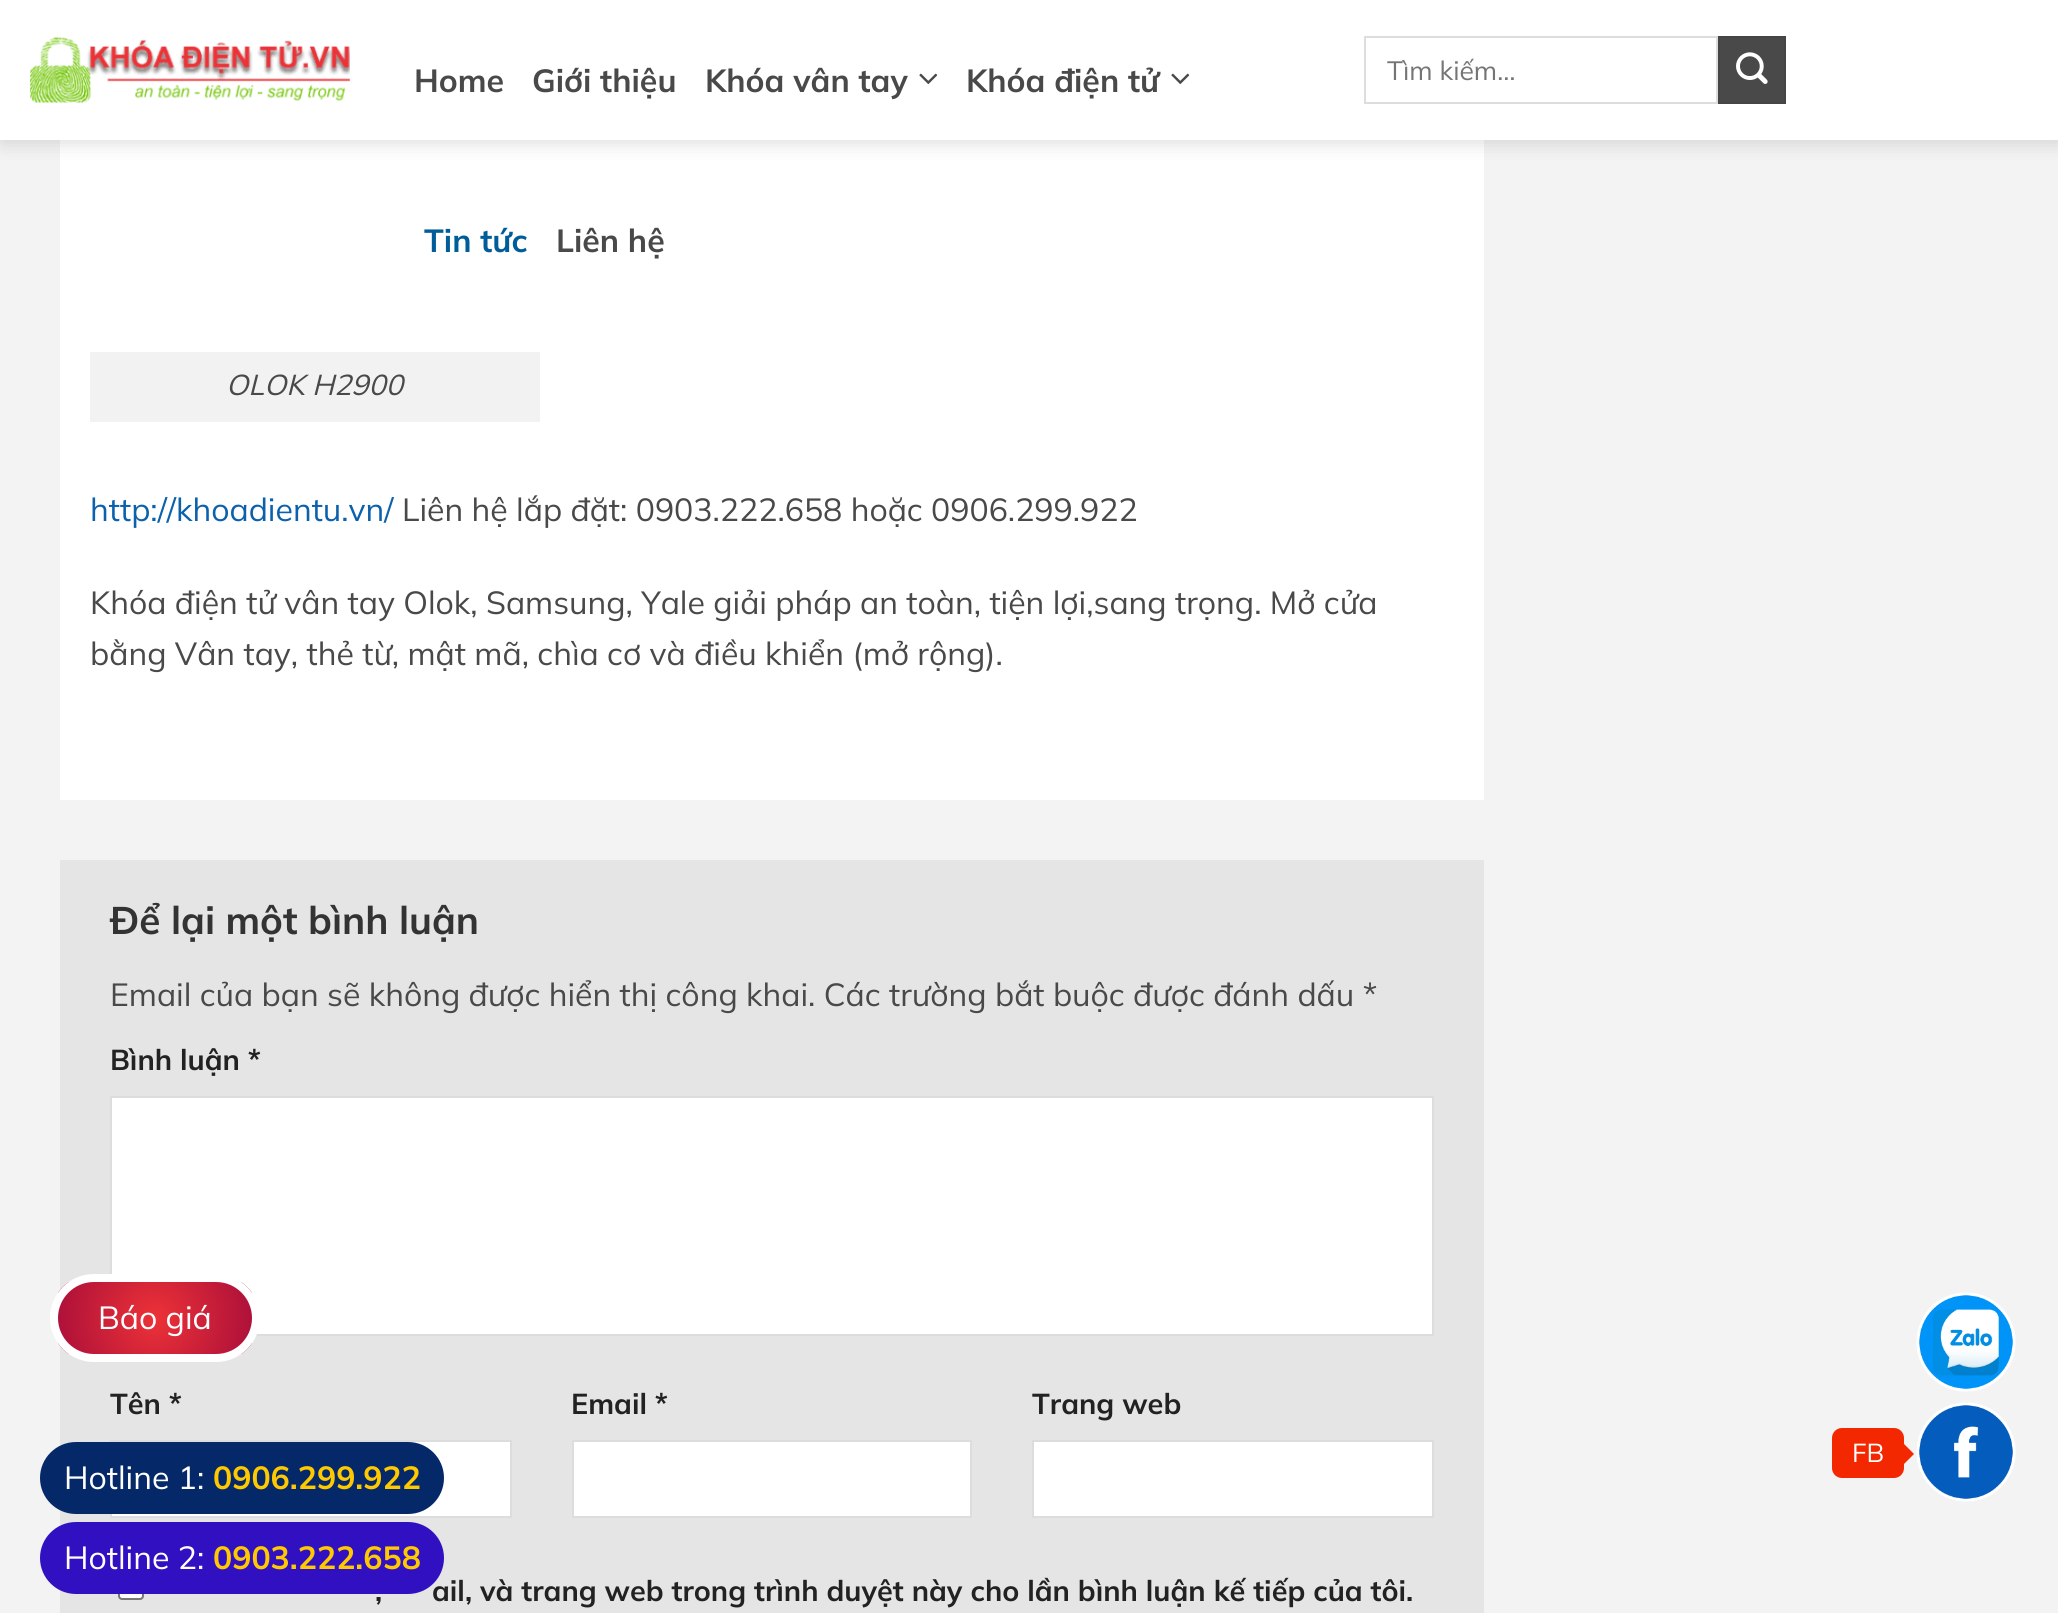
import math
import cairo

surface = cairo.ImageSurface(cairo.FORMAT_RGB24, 2058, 1613)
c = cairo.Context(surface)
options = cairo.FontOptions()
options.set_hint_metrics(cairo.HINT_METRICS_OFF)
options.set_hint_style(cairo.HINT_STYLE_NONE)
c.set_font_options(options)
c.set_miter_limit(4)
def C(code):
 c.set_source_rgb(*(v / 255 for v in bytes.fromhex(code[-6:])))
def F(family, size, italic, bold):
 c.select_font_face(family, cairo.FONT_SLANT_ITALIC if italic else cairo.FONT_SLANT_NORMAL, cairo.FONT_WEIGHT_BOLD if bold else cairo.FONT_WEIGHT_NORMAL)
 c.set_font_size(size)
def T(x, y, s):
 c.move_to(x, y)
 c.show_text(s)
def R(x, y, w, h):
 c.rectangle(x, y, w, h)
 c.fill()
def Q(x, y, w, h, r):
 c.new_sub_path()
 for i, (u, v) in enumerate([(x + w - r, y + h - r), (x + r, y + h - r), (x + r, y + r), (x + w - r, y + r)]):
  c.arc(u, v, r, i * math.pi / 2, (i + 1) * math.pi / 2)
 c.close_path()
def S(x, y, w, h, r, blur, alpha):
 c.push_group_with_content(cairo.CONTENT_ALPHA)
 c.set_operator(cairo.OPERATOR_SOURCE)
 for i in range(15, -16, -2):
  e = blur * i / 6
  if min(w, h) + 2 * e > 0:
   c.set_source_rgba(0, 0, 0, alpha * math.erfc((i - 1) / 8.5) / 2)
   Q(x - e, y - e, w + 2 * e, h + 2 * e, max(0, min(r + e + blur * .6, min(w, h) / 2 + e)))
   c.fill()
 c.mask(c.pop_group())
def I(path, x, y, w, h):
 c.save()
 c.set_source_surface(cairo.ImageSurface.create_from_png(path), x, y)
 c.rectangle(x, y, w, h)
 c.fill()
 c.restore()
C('f3f3f3')
c.paint()
C('ffffff')
R(60,140,1424,660)
C('000000')
S(2,2,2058,140,0,10,.15)
C('ffffff')
R(0,0,2058,140)
I('1.png',30,37,320,66)
F('Mulish',32,0,1)
C('4a494a')
T(414,92,'Home')
T(532,92,'Giới thiệu')
T(705,92,'Khóa vân tay')
I('2.png',919,73,19,11)
T(966,92,'Khóa điện tử')
I('2.png',1171,73,19,11)
C('005d99')
T(424,252,'Tin tức')
C('4a494a')
T(556,252,'Liên hệ')
c.rectangle(1365,37,352,66)
C('dddddd')
c.stroke()
F('Mulish',26.5,0,0)
C('757575')
T(1387,80,'Tìm kiếm…')
C('4a494a')
c.rectangle(1719,37,66,66)
c.fill_preserve()
C('464546')
c.stroke()
I('3.png',1736,52,32,32)
C('f2f2f2')
R(90,352,450,70)
F('Mulish',28.8,1,0)
C('4a494a')
T(226,395,'OLOK H2900')
F('Mulish',32,0,0)
C('0b61ab')
T(90,521,'http://khoadientu.vn/')
C('4a494a')
T(402,521,'Liên hệ lắp đặt: 0903.222.658 hoặc 0906.299.922')
T(90,614,'Khóa điện tử vân tay Olok, Samsung, Yale giải pháp an toàn, tiện lợi,sang trọng. Mở cửa')
T(90,665,'bằng Vân tay, thẻ từ, mật mã, chìa cơ và điều khiển (mở rộng).')
C('e5e5e5')
R(60,860,1424,753)
F('Mulish',38.5,0,1)
C('333333')
T(110,934,'Để lại một bình luận')
F('Mulish',32,0,0)
C('4a494a')
T(110,1006,'Email của bạn sẽ không được hiển thị công khai. Các trường bắt buộc được đánh dấu *')
F('Mulish',28.8,0,1)
C('222222')
T(110,1070,'Bình luận *')
C('ffffff')
c.rectangle(111,1097,1322,238)
c.fill_preserve()
C('dddddd')
c.stroke()
C('222222')
T(110,1414,'Tên *')
C('ffffff')
c.rectangle(111,1441,400,76)
c.fill_preserve()
C('dddddd')
c.stroke()
C('222222')
T(571,1414,'Email *')
C('ffffff')
c.rectangle(573,1441,398,76)
c.fill_preserve()
C('dddddd')
c.stroke()
C('222222')
T(1032,1414,'Trang web')
C('ffffff')
c.rectangle(1033,1441,400,76)
c.fill_preserve()
C('dddddd')
c.stroke()
C('ffffff')
Q(119,1575,24,24,3)
c.fill_preserve()
C('767676')
c.stroke()
C('222222')
T(375,1601,',')
T(432,1601,'ail, và trang web trong trình duyệt này cho lần bình luận kế tiếp của tôi.')
c.save()
Q(50,1274,210,88,44)
c.clip()
gradient = cairo.RadialGradient(155,1318,0,155,1318,103)
gradient.add_color_stop_rgba(0,0.929,0.196,0.216,1)
gradient.add_color_stop_rgba(1,0.671,0.059,0.227,1)
c.set_source(gradient)
R(58,1282,194,72)
c.restore()
Q(54,1278,202,80,40)
C('ffffff')
c.set_line_width(8)
c.stroke()
F('Mulish',32,0,0)
T(98,1329,'Báo giá')
I('4.png',1916,1292,100,100)
C('f32700')
Q(1832,1428,72,50,10)
c.fill()
F('Mulish',26,0,0)
C('ffffff')
T(1852,1462,'FB')
C('f32700')
c.new_path()
c.move_to(1904,1464)
c.line_to(1904,1444)
c.line_to(1914,1454)
c.close_path()
c.fill()
I('5.png',1916,1402,100,100)
C('052968')
Q(40,1442,404,72,36)
c.fill()
F('Mulish',32,0,0)
C('ffffff')
T(64,1489,'Hotline 1:')
F('Mulish',32,0,1)
C('fec901')
T(213,1489,'0906.299.922')
C('3110c2')
Q(40,1522,404,72,36)
c.fill()
F('Mulish',32,0,0)
C('ffffff')
T(64,1569,'Hotline 2:')
F('Mulish',32,0,1)
C('fec901')
T(213,1569,'0903.222.658')
surface.write_to_png('o.png')
